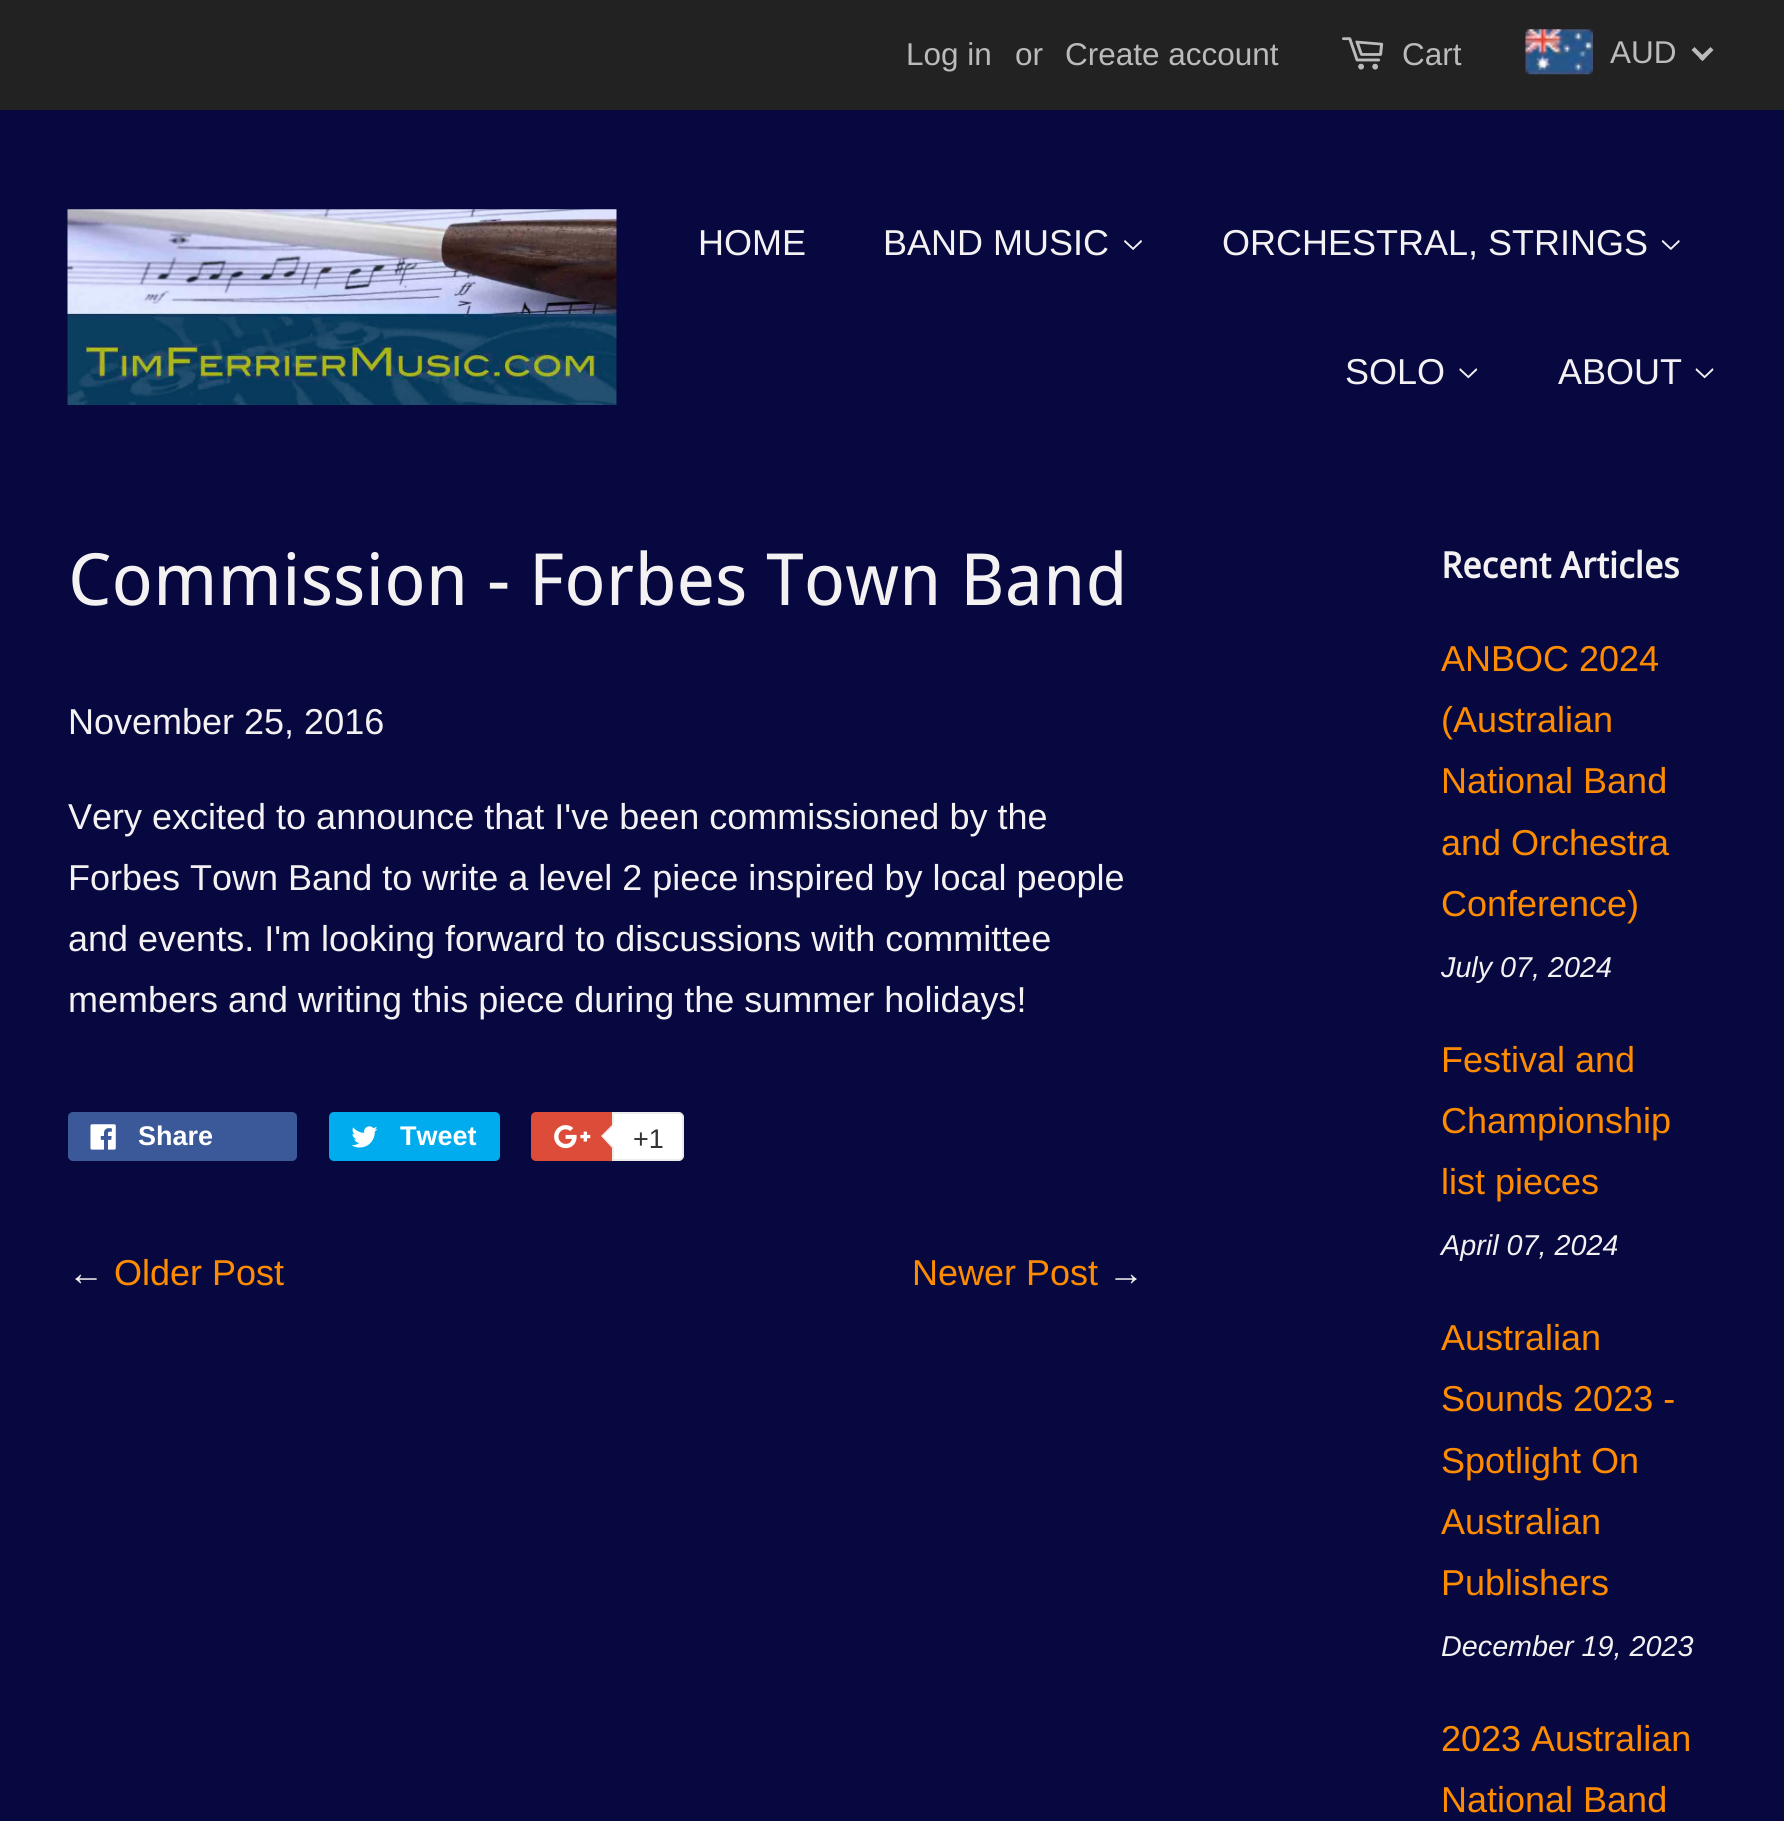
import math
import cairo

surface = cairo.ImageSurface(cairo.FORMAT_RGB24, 1784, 1821)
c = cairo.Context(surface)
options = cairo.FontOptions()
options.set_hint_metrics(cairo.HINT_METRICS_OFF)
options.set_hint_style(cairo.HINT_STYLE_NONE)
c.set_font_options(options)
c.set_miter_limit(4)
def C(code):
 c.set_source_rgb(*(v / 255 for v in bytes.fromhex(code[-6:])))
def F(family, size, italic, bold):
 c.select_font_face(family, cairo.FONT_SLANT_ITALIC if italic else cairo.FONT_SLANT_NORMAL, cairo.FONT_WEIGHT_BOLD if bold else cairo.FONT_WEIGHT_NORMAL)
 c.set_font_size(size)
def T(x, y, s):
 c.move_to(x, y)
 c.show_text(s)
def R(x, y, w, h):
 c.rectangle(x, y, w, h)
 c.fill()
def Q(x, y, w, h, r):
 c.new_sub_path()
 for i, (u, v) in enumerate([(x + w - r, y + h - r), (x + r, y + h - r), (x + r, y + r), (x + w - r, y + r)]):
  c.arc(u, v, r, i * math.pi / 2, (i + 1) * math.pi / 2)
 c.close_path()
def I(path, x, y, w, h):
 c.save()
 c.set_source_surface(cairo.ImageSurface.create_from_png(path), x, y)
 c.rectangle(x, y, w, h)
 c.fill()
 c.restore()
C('070840')
c.paint()
C('222222')
R(0,0,1784,110)
F('Liberation Sans',31.5,0,0)
C('bbbbbb')
T(906,65,'Log in')
T(1015,65,'or')
T(1065,65,'Create account')
I('1.png',1342,37,42,33)
T(1402,65,'Cart')
I('2.png',1525,29,68,46)
T(1610,63,'AUD')
c.new_path()
c.move_to(1710.5,47)
c.line_to(1713.5,50)
c.line_to(1702.5,61)
c.line_to(1699,58)
c.close_path()
c.fill()
c.new_path()
c.move_to(1694.5,47)
c.line_to(1705.5,58)
c.line_to(1702.5,61)
c.line_to(1691.5,50)
c.close_path()
c.fill()
I('3.png',67,209,550,196)
F('Liberation Sans',36,0,0)
C('f3f1f1')
T(698,255,'HOME')
T(883,255,'BAND MUSIC')
I('4.png',1124,240,18,10)
T(1222,255,'ORCHESTRAL, STRINGS')
I('5.png',1661,240,19,10)
T(1345,384,'SOLO')
I('6.png',1459,368,19,11)
T(1558,384,'ABOUT')
I('7.png',1695,368,19,11)
F('Droid Sans',72,0,0)
T(68,605,'Commission - Forbes Town Band')
F('Liberation Sans',36,0,0)
T(68,734,'November 25, 2016')
T(68,829,'Very excited to announce that I\'ve been commissioned by the')
T(68,890,'Forbes Town Band to write a level 2 piece inspired by local people')
T(68,951,'and events. I\'m looking forward to discussions with committee')
T(68,1012,'members and writing this piece during the summer holidays!')
C('3b5998')
Q(68,1112,229,49,5)
c.fill()
I('8.png',90,1124,26,26)
F('Liberation Sans',27,0,1)
C('ffffff')
T(138,1145,'Share')
C('00aced')
Q(329,1112,171,49,5)
c.fill()
I('9.png',351,1126,27,22)
C('ffffff')
T(400,1145,'Tweet')
C('dd4b39')
Q(531,1112,149,49,5)
c.fill()
I('10.png',554,1125,37,24)
C('ffffff')
c.new_path()
c.move_to(613,1113)
c.line_to(679,1113)
c.curve_to(681,1113,683,1115,683,1117)
c.line_to(683,1156)
c.curve_to(683,1158,681,1160,679,1160)
c.line_to(613,1160)
c.close_path()
c.fill_preserve()
C('ececec')
c.stroke()
c.new_path()
c.move_to(614,1123)
c.line_to(614,1150)
c.line_to(601,1136)
c.close_path()
c.fill()
C('ffffff')
c.new_path()
c.move_to(616.5,1123)
c.line_to(616.5,1150)
c.line_to(603,1136)
c.close_path()
c.fill()
F('Liberation Sans',27,0,0)
C('333333')
T(633,1148,'+1')
F('Liberation Sans',36,0,0)
C('f3f1f1')
T(68,1285,'←')
C('ff8b00')
T(114,1285,'Older Post')
T(912,1285,'Newer Post')
C('f3f1f1')
T(1108,1285,'→')
F('Droid Sans',36,0,1)
T(1441,578,'Recent Articles')
F('Liberation Sans',36,0,0)
C('ff8b00')
T(1441,671,'ANBOC 2024')
T(1441,732,'(Australian')
T(1441,793,'National Band')
T(1441,855,'and Orchestra')
T(1441,916,'Conference)')
F('Liberation Sans',28.75,1,0)
C('f3f1f1')
T(1441,977,'July 07, 2024')
F('Liberation Sans',36,0,0)
C('ff8b00')
T(1441,1072,'Festival and')
T(1441,1133,'Championship')
T(1441,1194,'list pieces')
F('Liberation Sans',28.75,1,0)
C('f3f1f1')
T(1441,1255,'April 07, 2024')
F('Liberation Sans',36,0,0)
C('ff8b00')
T(1441,1350,'Australian')
T(1441,1411,'Sounds 2023 -')
T(1441,1473,'Spotlight On')
T(1441,1534,'Australian')
T(1441,1595,'Publishers')
F('Liberation Sans',28.75,1,0)
C('f3f1f1')
T(1441,1656,'December 19, 2023')
F('Liberation Sans',36,0,0)
C('ff8b00')
T(1441,1751,'2023 Australian')
T(1441,1812,'National Band')
surface.write_to_png('o.png')
